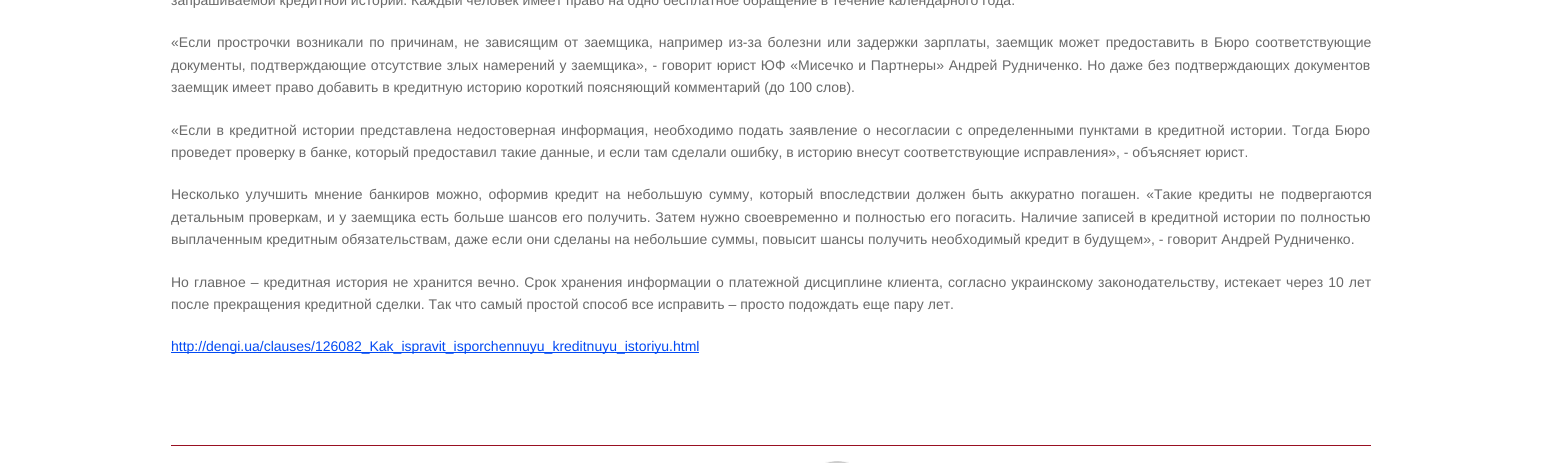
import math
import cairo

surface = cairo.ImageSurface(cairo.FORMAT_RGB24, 1541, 463)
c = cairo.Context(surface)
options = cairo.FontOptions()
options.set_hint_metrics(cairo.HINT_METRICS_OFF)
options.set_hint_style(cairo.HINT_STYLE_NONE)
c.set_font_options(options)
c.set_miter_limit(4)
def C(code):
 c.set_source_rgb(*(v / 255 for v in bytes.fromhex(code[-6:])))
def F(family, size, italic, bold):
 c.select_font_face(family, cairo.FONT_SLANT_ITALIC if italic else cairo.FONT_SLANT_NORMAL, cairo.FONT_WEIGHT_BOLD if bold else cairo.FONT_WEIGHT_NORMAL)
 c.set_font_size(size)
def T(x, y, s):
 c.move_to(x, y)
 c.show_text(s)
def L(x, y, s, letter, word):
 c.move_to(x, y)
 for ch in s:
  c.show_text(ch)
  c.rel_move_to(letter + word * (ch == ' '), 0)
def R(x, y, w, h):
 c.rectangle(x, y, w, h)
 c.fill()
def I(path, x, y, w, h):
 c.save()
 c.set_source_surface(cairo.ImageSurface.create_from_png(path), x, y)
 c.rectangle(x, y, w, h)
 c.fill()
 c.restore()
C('ffffff')
c.paint()
F('Liberation Sans',14,0,0)
C('696969')
T(171,5,'запрашиваемой кредитной истории. Каждый человек имеет право на одно бесплатное обращение в течение календарного года.')
L(171,47,'«Если прострочки возникали по причинам, не зависящим от заемщика, например из-за болезни или задержки зарплаты, заемщик может предоставить в Бюро соответствующие',0,2)
L(171,70,'документы, подтверждающие отсутствие злых намерений у заемщика», - говорит юрист ЮФ «Мисечко и Партнеры» Андрей Рудниченко. Но даже без подтверждающих документов',0,.8)
T(171,92,'заемщик имеет право добавить в кредитную историю короткий поясняющий комментарий (до 100 слов).')
L(171,135,'«Если в кредитной истории представлена недостоверная информация, необходимо подать заявление о несогласии с определенными пунктами в кредитной истории. Тогда Бюро',0,1.5)
T(171,157,'проведет проверку в банке, который предоставил такие данные, и если там сделали ошибку, в историю внесут соответствующие исправления», - объясняет юрист.')
L(171,199,'Несколько улучшить мнение банкиров можно, оформив кредит на небольшую сумму, который впоследствии должен быть аккуратно погашен. «Такие кредиты не подвергаются',0,2.5)
L(171,222,'детальным проверкам, и у заемщика есть больше шансов его получить. Затем нужно своевременно и полностью его погасить. Наличие записей в кредитной истории по полностью',0,.75)
T(171,244,'выплаченным кредитным обязательствам, даже если они сделаны на небольшие суммы, повысит шансы получить необходимый кредит в будущем», - говорит Андрей Рудниченко.')
L(171,287,'Но главное – кредитная история не хранится вечно. Срок хранения информации о платежной дисциплине клиента, согласно украинскому законодательству, истекает через 10 лет',0,1.1)
T(171,309,'после прекращения кредитной сделки. Так что самый простой способ все исправить – просто подождать еще пару лет.')
C('034af3')
R(171,352,528,1)
T(171,351,'http://dengi.ua/clauses/126082_Kak_ispravit_isporchennuyu_kreditnuyu_istoriyu.html')
C('991122')
R(171,445,1200,1)
I('1.png',825,461,24,2)
surface.write_to_png('o.png')
